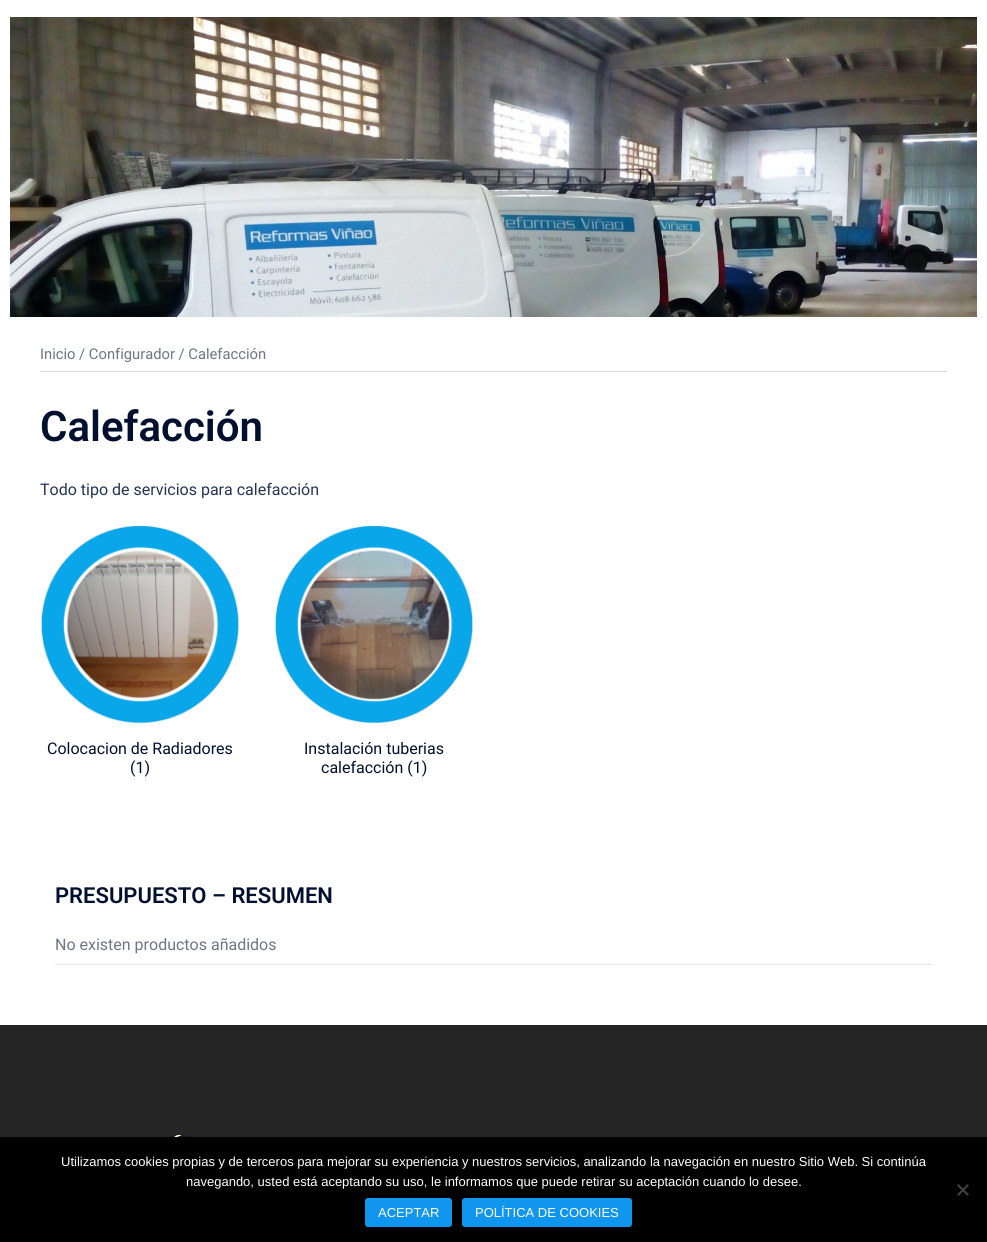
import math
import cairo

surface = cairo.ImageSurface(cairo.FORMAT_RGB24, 987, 1242)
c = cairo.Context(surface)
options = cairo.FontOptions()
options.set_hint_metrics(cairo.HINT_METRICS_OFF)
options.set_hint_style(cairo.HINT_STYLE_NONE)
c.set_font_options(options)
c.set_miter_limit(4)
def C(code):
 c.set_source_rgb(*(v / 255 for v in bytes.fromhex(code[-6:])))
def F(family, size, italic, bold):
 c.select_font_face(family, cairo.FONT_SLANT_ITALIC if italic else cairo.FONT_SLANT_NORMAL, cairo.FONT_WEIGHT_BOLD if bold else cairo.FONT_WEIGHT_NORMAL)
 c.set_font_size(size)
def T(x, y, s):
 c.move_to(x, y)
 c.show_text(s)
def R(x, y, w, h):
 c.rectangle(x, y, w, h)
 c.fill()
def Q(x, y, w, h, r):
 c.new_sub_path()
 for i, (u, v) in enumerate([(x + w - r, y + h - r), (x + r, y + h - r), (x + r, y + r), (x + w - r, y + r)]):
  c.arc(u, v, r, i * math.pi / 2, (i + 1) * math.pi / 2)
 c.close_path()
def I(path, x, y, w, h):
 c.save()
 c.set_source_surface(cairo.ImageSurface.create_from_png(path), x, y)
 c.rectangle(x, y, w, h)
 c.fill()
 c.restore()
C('ffffff')
c.paint()
I('1.png',10,17,967,300)
C('dbdbdb')
R(40,371,907,1)
F('Roboto',14.75,0,0)
C('6d7685')
T(40,359,'Inicio / Configurador / Calefacción')
F('Roboto SemiBold',42,0,0)
C('00102e')
T(40,441,'Calefacción')
F('Roboto',16,0,0)
C('233452')
T(40,495,'Todo tipo de servicios para calefacción')
I('2.png',41,525,198,199)
C('00102e')
T(47,754,'Colocacion de Radiadores')
T(130,773,'(1)')
I('3.png',275,525,198,199)
T(304,754,'Instalación tuberias')
T(321,773,'calefacción (1)')
F('Roboto SemiBold',22,0,0)
T(55,903,'PRESUPUESTO – RESUMEN')
C('ebe9eb')
R(55,964,877,1)
F('Roboto',16,0,0)
C('6d7685')
T(55,950,'No existen productos añadidos')
C('252525')
R(0,1025,987,112)
I('4.png',170,1135,22,2)
C('000000')
R(0,1137,987,105)
F('Liberation Sans',13,0,0)
C('ffffff')
T(61,1166,'Utilizamos cookies propias y de terceros para mejorar su experiencia y nuestros servicios, analizando la navegación en nuestro Sitio Web. Si continúa')
T(186,1186,'navegando, usted está aceptando su uso, le informamos que puede retirar su aceptación cuando lo desee.')
C('404040')
c.new_path()
c.move_to(967.5,1184)
c.line_to(969,1185.5)
c.line_to(958.5,1196)
c.line_to(957,1194.5)
c.close_path()
c.fill()
c.new_path()
c.move_to(957,1185.5)
c.line_to(958.5,1184)
c.line_to(969,1194.5)
c.line_to(967.5,1196)
c.close_path()
c.fill()
C('1096ef')
Q(365,1198,87,29,3)
c.fill()
C('ffffff')
T(378,1217,'ACEPTAR')
C('1096ef')
Q(462,1198,170,29,3)
c.fill()
C('ffffff')
T(475,1217,'POLÍTICA DE COOKIES')
surface.write_to_png('o.png')
